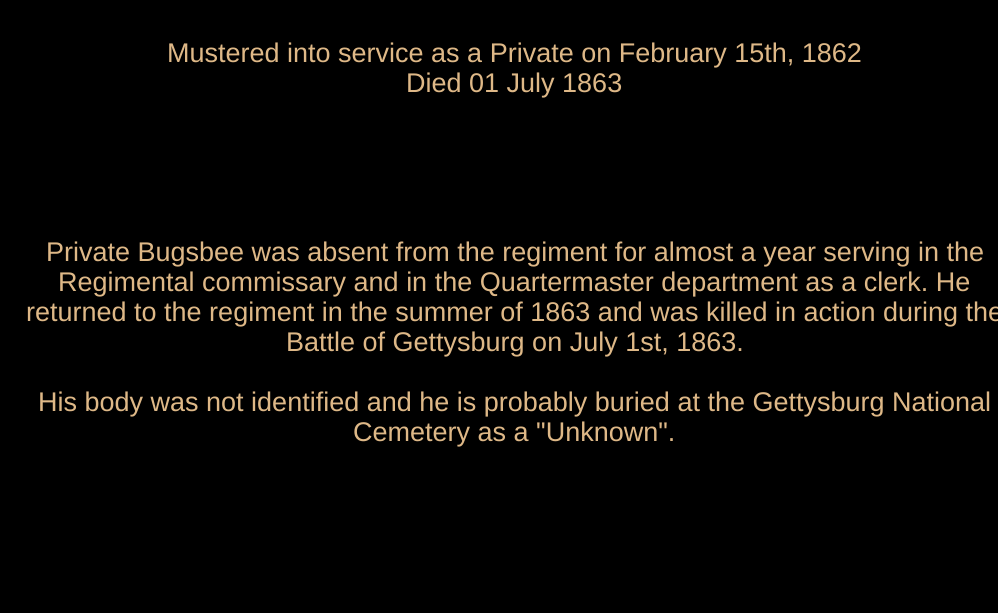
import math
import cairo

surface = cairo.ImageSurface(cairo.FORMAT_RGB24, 998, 613)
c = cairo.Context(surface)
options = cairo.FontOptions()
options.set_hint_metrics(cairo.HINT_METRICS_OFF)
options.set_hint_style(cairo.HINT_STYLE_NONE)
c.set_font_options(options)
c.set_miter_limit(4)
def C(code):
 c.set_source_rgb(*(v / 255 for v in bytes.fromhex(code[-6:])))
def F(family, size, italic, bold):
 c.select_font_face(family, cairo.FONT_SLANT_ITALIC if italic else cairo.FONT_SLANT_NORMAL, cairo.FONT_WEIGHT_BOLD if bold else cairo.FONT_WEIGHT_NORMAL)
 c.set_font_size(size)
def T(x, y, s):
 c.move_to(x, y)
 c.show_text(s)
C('000000')
c.paint()
F('Liberation Sans',27,0,0)
C('deb887')
T(167,62,'Mustered into service as a Private on February 15th, 1862')
T(406,92,'Died 01 July 1863')
T(46,261,'Private Bugsbee was absent from the regiment for almost a year serving in the')
T(58,291,'Regimental commissary and in the Quartermaster department as a clerk. He')
T(26,321,'returned to the regiment in the summer of 1863 and was killed in action during the')
T(286,351,'Battle of Gettysburg on July 1st, 1863.')
T(38,411,'His body was not identified and he is probably buried at the Gettysburg National')
T(353,441,'Cemetery as a "Unknown".')
surface.write_to_png('o.png')
